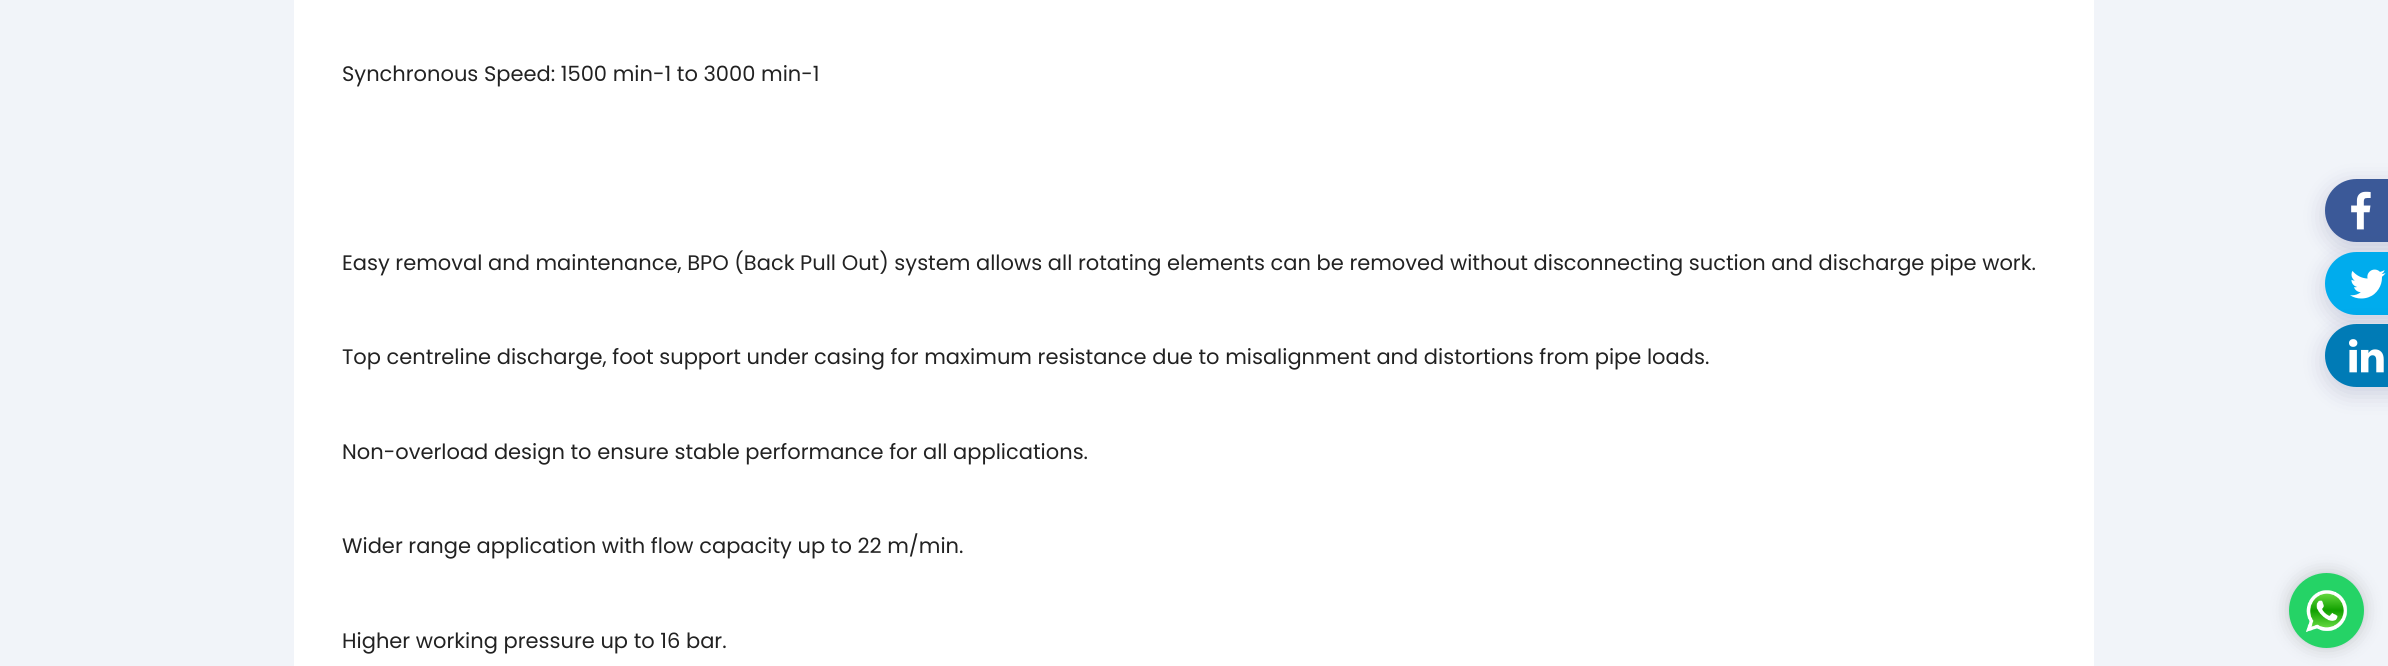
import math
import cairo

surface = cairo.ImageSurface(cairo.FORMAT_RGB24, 2388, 666)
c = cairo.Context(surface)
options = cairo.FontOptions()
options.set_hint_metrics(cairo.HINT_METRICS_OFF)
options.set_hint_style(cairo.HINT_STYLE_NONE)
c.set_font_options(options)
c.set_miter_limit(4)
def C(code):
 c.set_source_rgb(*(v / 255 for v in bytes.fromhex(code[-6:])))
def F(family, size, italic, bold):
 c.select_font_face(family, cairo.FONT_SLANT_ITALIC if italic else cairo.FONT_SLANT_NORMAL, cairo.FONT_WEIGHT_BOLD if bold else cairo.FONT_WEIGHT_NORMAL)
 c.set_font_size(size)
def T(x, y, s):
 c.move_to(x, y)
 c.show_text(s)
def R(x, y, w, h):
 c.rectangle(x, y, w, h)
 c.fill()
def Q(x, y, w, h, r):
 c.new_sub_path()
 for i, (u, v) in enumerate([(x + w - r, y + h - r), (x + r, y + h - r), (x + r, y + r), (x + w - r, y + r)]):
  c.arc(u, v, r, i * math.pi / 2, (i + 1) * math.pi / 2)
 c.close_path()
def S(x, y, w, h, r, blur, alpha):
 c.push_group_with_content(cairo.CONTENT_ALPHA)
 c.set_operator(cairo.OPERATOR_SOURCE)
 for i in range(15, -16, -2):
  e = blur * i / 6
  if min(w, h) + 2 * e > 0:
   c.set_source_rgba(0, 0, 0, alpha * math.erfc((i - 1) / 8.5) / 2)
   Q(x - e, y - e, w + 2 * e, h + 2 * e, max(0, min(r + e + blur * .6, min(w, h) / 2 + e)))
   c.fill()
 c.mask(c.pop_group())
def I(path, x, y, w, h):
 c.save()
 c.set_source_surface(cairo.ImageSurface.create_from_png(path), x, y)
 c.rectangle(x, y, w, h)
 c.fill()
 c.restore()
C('f1f4f9')
c.paint()
C('ffffff')
R(294,0,1800,666)
F('Poppins',21,0,0)
C('222222')
T(342,81,'Synchronous Speed: 1500 min-1 to 3000 min-1')
T(342,270,'Easy removal and maintenance, BPO (Back Pull Out) system allows all rotating elements can be removed without disconnecting suction and discharge pipe work.')
T(342,364,'Top centreline discharge, foot support under casing for maximum resistance due to misalignment and distortions from pipe loads.')
T(342,459,'Non-overload design to ensure stable performance for all applications.')
T(342,553,'Wider range application with flow capacity up to 22 m/min.')
T(342,648,'Higher working pressure up to 16 bar.')
C('00004b')
S(2325,185,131,63,31.5,12,.16)
C('3b5998')
c.new_path()
c.move_to(2356.5,179)
c.line_to(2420,179)
c.line_to(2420,242)
c.line_to(2356.5,242)
c.curve_to(2339,242,2325,228,2325,210.5)
c.curve_to(2325,193,2339,179,2356.5,179)
c.close_path()
c.fill()
I('1.png',2351,191,20,39)
C('00004b')
S(2325,258,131,63,31.5,12,.16)
C('00aced')
c.new_path()
c.move_to(2356.5,252)
c.line_to(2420,252)
c.line_to(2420,315)
c.line_to(2356.5,315)
c.curve_to(2339,315,2325,301,2325,283.5)
c.curve_to(2325,266,2339,252,2356.5,252)
c.close_path()
c.fill()
I('2.png',2350,269,36,30)
C('00004b')
S(2325,330,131,63,31.5,12,.16)
C('007bb6')
c.new_path()
c.move_to(2356.5,324)
c.line_to(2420,324)
c.line_to(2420,387)
c.line_to(2356.5,387)
c.curve_to(2339,387,2325,373,2325,355.5)
c.curve_to(2325,338,2339,324,2356.5,324)
c.close_path()
c.fill()
I('3.png',2349,339,35,34)
C('000000')
S(2289,573,75,75,37.5,9,.2)
C('25d366')
c.arc(2326.5,610.5,37.5,0,2 * math.pi)
c.fill()
I('4.png',2306,590,42,42)
surface.write_to_png('o.png')
